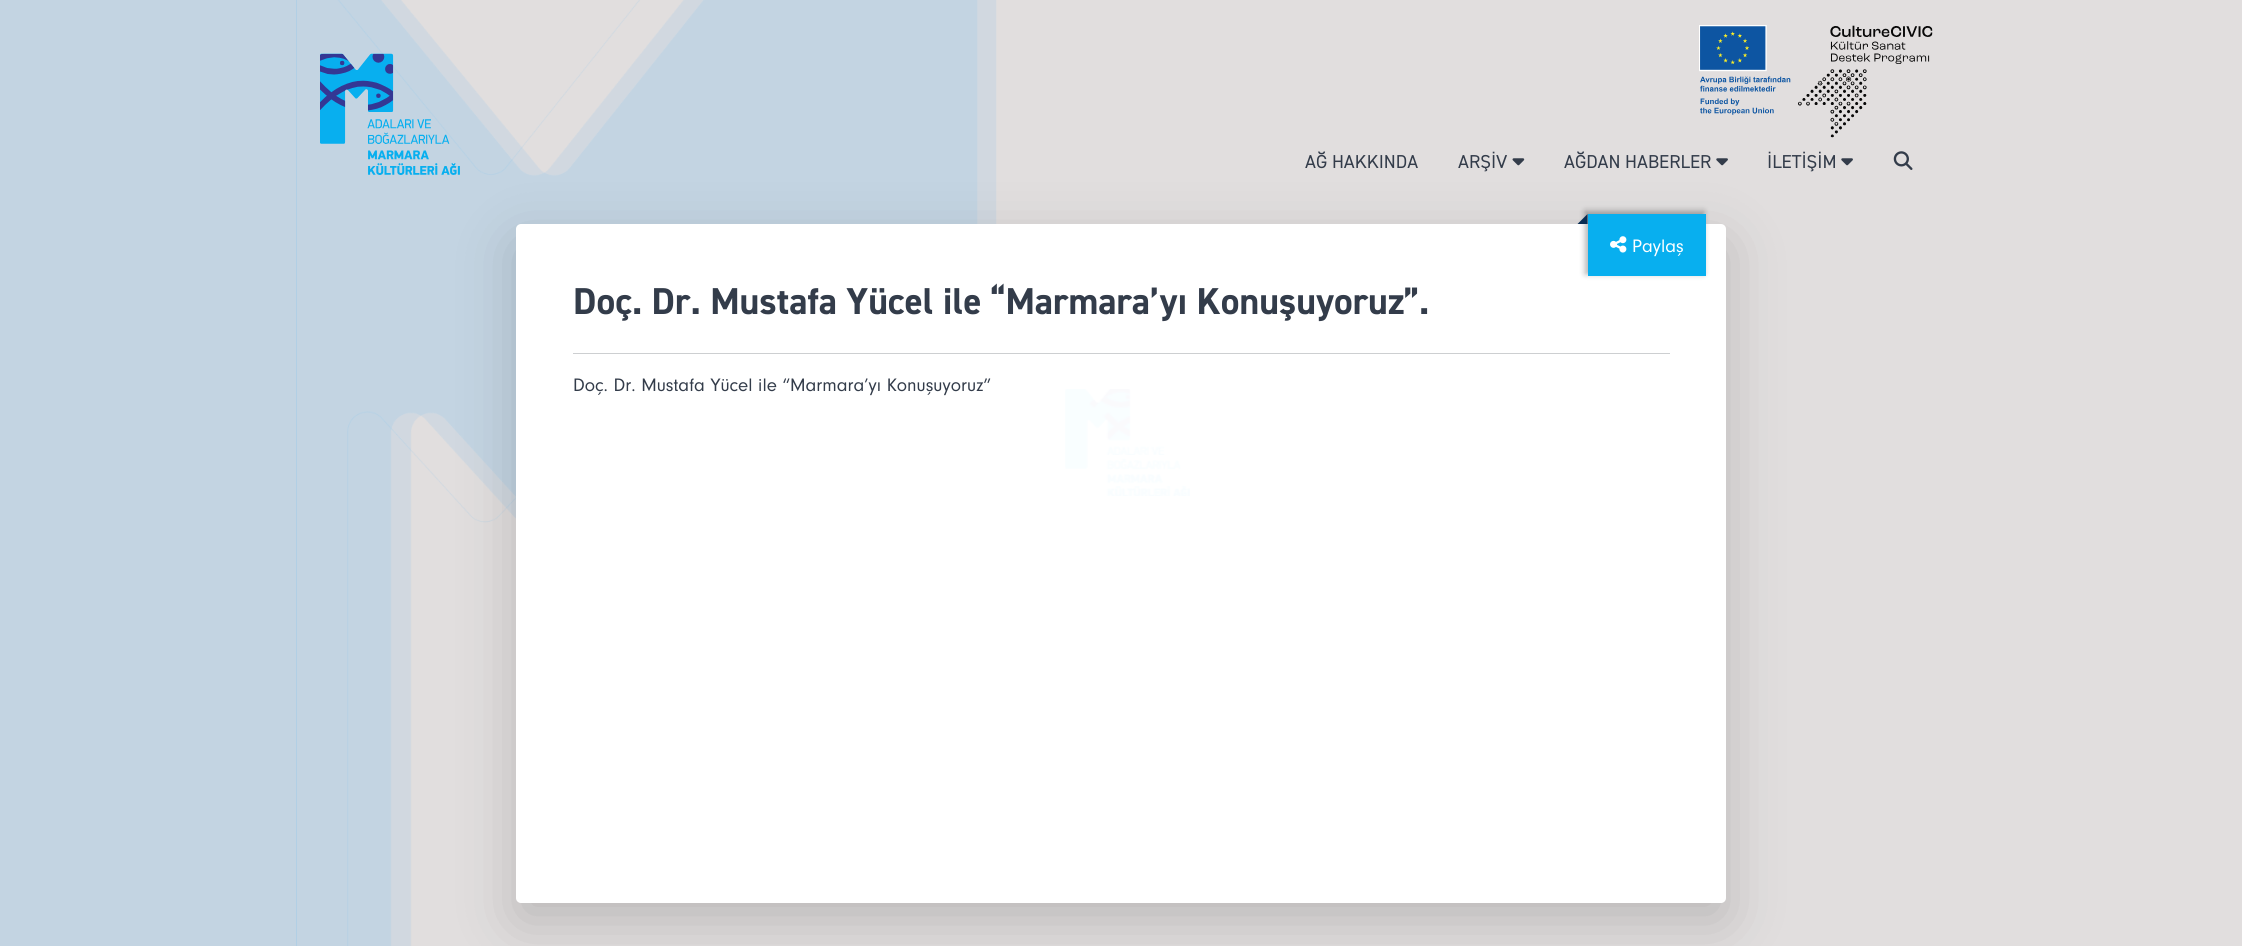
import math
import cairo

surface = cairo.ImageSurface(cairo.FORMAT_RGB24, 2242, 946)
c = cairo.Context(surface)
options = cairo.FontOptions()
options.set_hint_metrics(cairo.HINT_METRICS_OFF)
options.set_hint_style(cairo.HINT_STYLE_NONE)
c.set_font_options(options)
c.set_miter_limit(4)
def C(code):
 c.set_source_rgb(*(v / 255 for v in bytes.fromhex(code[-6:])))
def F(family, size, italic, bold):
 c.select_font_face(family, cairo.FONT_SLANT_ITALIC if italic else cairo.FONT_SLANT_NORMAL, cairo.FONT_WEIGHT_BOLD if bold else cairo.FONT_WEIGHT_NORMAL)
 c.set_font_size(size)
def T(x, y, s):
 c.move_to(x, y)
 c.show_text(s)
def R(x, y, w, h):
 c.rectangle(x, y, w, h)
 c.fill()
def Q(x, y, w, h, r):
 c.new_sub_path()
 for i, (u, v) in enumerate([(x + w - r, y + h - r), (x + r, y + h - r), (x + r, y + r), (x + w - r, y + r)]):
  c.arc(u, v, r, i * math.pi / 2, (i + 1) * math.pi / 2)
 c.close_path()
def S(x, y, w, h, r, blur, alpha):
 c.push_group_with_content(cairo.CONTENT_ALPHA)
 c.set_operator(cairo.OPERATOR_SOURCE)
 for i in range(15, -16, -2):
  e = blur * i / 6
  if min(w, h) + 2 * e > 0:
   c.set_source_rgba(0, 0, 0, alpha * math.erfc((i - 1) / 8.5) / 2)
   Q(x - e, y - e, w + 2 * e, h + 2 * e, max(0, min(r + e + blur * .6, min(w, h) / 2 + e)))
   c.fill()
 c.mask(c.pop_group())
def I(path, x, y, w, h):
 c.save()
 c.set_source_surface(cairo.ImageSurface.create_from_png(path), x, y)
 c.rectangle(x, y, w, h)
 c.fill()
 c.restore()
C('e1dede')
c.paint()
I('1.png',296,0,701,946)
c.set_source_rgba(0.267,0.667,0.961,0.19)
R(0,0,297,946)
I('2.png',1699,25,234,113)
C('080808')
S(516,243,1210,678,5,28,.18)
I('3.png',320,53,140,122)
F('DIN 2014',18.75,0,0)
C('333c4a')
T(1305,168,'AĞ HAKKINDA')
T(1458,168,'ARŞİV')
I('4.png',1512,158,13,8)
T(1564,168,'AĞDAN HABERLER')
I('5.png',1716,158,12,8)
T(1767,168,'İLETİŞİM')
I('6.png',1841,158,12,8)
I('7.png',1893,151,20,19)
C('ffffff')
Q(516,224,1210,679,5)
c.fill()
C('080808')
S(1585,211,119,63,0,3,.3)
C('08afef')
R(1588,214,118,62)
C('092d52')
c.new_path()
c.move_to(1587.5,224)
c.line_to(1577.5,224)
c.line_to(1587.5,214)
c.close_path()
c.fill()
I('8.png',1610,236,17,17)
F('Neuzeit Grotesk',18.75,0,0)
C('ffffff')
T(1632,252,'Paylaş')
F('DIN 2014',37.5,0,1)
C('333c4a')
T(573,314,'Doç. Dr. Mustafa Yücel ile “Marmara’yı Konuşuyoruz”.')
C('cdcfd1')
R(573,353,1097,1)
F('Neuzeit Grotesk',18.75,0,0)
C('333c4a')
T(573,391,'Doç. Dr. Mustafa Yücel ile “Marmara’yı Konuşuyoruz”')
I('9.png',1065,389,125,107)
surface.write_to_png('o.png')
